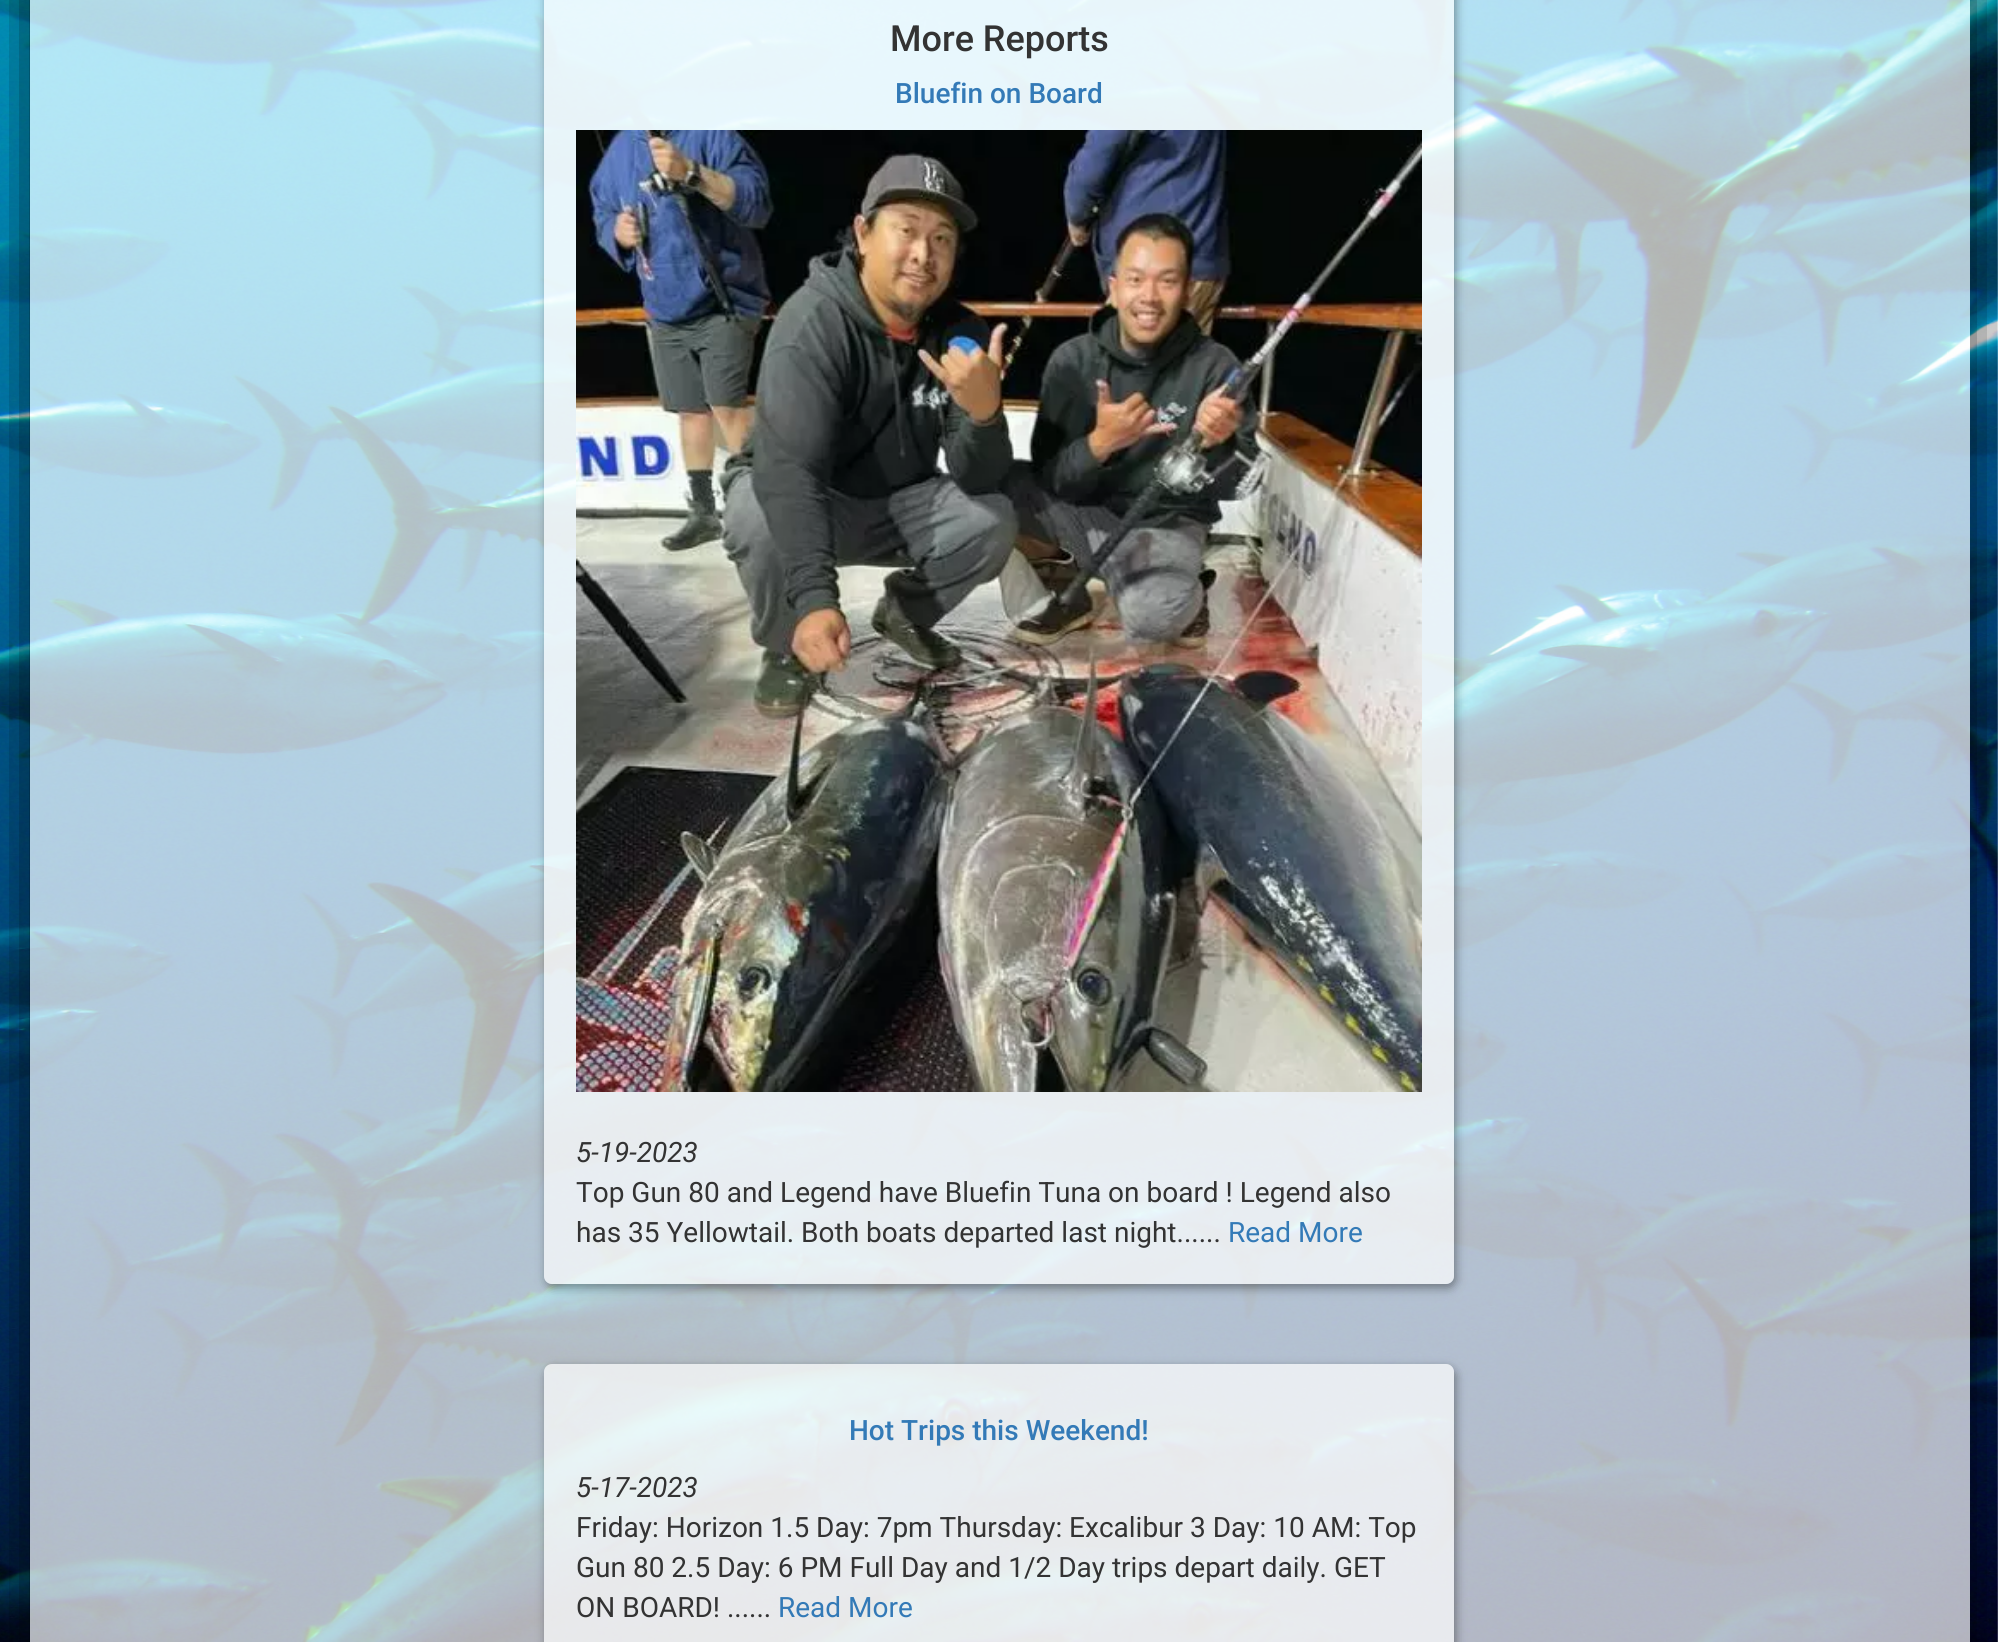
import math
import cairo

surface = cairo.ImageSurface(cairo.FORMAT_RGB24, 1998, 1642)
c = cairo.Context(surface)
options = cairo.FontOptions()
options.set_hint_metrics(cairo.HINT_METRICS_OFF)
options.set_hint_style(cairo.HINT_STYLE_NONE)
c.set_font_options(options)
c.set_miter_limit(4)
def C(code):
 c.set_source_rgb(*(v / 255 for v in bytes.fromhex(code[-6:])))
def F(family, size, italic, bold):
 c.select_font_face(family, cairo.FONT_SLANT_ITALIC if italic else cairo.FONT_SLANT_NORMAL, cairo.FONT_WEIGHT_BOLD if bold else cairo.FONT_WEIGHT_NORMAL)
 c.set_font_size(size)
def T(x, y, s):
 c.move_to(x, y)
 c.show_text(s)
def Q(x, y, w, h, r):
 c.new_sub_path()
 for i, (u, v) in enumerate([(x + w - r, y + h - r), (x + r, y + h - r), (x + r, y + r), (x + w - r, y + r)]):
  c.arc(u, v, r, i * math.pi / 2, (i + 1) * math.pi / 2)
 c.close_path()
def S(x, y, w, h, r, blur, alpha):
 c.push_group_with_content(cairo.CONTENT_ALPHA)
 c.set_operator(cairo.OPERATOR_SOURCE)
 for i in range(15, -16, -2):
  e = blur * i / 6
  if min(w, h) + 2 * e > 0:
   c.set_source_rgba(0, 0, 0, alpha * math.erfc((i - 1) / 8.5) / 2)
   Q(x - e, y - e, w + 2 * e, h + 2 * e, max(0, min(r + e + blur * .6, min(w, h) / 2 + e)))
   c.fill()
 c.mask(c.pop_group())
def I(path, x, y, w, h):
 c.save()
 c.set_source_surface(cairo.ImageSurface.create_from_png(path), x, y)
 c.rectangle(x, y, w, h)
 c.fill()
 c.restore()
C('ffffff')
c.paint()
I('1.png',0,0,1998,1642)
c.save()
c.set_fill_rule(cairo.FILL_RULE_EVEN_ODD)
c.new_path()
c.move_to(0,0)
c.line_to(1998,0)
c.line_to(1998,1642)
c.line_to(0,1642)
c.close_path()
c.move_to(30,-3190)
c.line_to(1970,-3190)
c.line_to(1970,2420)
c.line_to(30,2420)
c.close_path()
c.clip()
C('000000')
S(24,-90,1948,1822,0,30,.8)
c.restore()
c.save()
c.set_fill_rule(cairo.FILL_RULE_EVEN_ODD)
c.new_path()
c.move_to(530,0)
c.line_to(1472,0)
c.line_to(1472,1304)
c.line_to(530,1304)
c.close_path()
c.move_to(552,-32)
c.line_to(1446,-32)
c.curve_to(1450.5,-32,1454,-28.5,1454,-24)
c.line_to(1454,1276)
c.curve_to(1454,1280.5,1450.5,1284,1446,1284)
c.line_to(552,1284)
c.curve_to(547.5,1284,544,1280.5,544,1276)
c.line_to(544,-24)
c.curve_to(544,-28.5,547.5,-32,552,-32)
c.close_path()
c.clip()
C('060606')
S(546,-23,910,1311,8,5,.4)
c.restore()
c.set_source_rgba(1,1,1,0.7)
Q(544,-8,910,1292,8)
c.fill()
F('Roboto Medium',36,0,0)
C('333333')
T(890,51,'More Reports')
F('Roboto Medium',28,0,0)
C('337ab7')
T(895,103,'Bluefin on Board')
I('2.png',576,130,846,962)
F('Roboto',28,1,0)
C('333333')
T(576,1162,'5-19-2023')
F('Roboto',28,0,0)
T(576,1202,'Top Gun 80 and Legend have Bluefin Tuna on board ! Legend also')
T(576,1242,'has 35 Yellowtail. Both boats departed last night......')
C('337ab7')
T(1228,1242,'Read More')
c.save()
c.set_fill_rule(cairo.FILL_RULE_EVEN_ODD)
c.new_path()
c.move_to(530,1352)
c.line_to(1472,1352)
c.line_to(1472,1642)
c.line_to(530,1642)
c.close_path()
c.move_to(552,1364)
c.line_to(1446,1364)
c.curve_to(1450.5,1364,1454,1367.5,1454,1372)
c.line_to(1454,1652)
c.curve_to(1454,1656.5,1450.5,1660,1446,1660)
c.line_to(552,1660)
c.curve_to(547.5,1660,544,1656.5,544,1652)
c.line_to(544,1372)
c.curve_to(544,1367.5,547.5,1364,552,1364)
c.close_path()
c.clip()
C('060606')
S(546,1368,910,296,8,5,.4)
c.restore()
c.set_source_rgba(1,1,1,0.7)
Q(544,1364,910,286,8)
c.fill()
F('Roboto Medium',28,0,0)
C('337ab7')
T(849,1440,'Hot Trips this Weekend!')
F('Roboto',28,1,0)
C('333333')
T(576,1497,'5-17-2023')
F('Roboto',28,0,0)
T(576,1537,'Friday: Horizon 1.5 Day: 7pm Thursday: Excalibur 3 Day: 10 AM: Top')
T(576,1577,'Gun 80 2.5 Day: 6 PM Full Day and 1/2 Day trips depart daily. GET')
T(576,1617,'ON BOARD! ......')
C('337ab7')
T(778,1617,'Read More')
surface.write_to_png('o.png')
